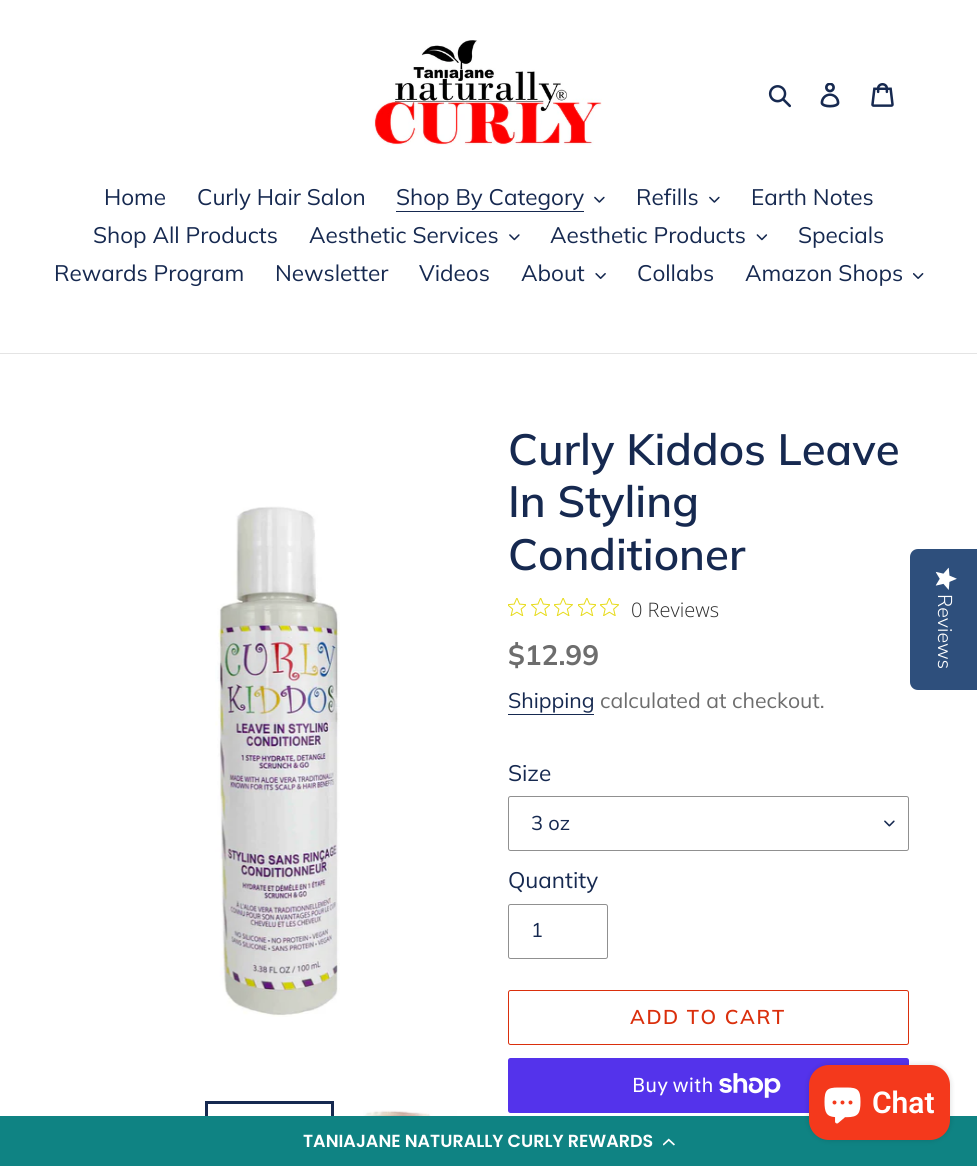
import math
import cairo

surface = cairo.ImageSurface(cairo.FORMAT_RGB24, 977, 1166)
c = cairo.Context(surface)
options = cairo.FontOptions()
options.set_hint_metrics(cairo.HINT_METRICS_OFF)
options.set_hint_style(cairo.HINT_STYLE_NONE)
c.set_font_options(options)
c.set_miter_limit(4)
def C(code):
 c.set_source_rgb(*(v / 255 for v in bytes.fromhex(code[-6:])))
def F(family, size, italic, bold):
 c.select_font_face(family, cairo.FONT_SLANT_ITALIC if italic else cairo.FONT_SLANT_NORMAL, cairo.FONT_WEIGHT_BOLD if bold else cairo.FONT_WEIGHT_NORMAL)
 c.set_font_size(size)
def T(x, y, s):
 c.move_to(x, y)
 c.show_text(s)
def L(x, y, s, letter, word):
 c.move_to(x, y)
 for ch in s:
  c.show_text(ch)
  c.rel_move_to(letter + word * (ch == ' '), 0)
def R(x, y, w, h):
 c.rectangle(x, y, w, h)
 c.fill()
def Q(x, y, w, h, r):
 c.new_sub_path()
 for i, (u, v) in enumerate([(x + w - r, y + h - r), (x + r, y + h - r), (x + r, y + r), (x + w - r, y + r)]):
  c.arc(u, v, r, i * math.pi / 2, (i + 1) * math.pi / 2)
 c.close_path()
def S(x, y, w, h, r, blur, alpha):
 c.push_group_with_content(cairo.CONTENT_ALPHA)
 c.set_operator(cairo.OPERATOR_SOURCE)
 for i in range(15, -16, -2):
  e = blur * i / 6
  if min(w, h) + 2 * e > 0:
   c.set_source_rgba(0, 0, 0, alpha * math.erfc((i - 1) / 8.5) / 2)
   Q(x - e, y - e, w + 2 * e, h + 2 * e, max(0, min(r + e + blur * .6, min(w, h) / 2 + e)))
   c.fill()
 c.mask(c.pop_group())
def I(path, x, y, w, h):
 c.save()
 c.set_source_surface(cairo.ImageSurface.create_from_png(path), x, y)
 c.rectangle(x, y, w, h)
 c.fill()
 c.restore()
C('ffffff')
c.paint()
I('1.png',372,40,230,105)
I('2.png',768,85,23,23)
I('3.png',820,83,20,25)
I('4.png',871,83,23,24)
C('e4e4e4')
R(0,353,977,1)
F('Muli',22.5,0,0)
C('162950')
T(104,205,'Home')
T(197,205,'Curly Hair Salon')
T(396,205,'Shop By Category')
R(396,211,188,1)
I('5.png',594,196,11,7)
T(636,205,'Refills')
I('5.png',709,196,11,7)
T(751,205,'Earth Notes')
T(93,243,'Shop All Products')
T(309,243,'Aesthetic Services')
I('6.png',509,234,11,7)
T(550,243,'Aesthetic Products')
I('7.png',756,234,12,7)
T(798,243,'Specials')
T(54,281,'Rewards Program')
T(275,281,'Newsletter')
T(419,281,'Videos')
T(521,281,'About')
I('8.png',595,273,11,6)
T(637,281,'Collabs')
T(745,281,'Amazon Shops')
I('9.png',913,273,11,6)
I('10.png',215,506,125,511)
c.rectangle(206.5,1102.5,126,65)
c.set_line_width(3)
c.stroke()
I('11.png',363,1110,94,6)
F('Muli SemiBold',43.75,0,0)
T(508,465,'Curly Kiddos Leave')
T(508,517,'In Styling')
T(508,570,'Conditioner')
I('12.png',508,598,18,18)
I('13.png',531,598,19,18)
I('14.png',554,598,19,18)
I('12.png',578,598,18,18)
I('15.png',600,598,19,18)
F('Open Sans Light',20,0,0)
C('2c2c2c')
T(631,617,'0 Reviews')
F('Muli',28,0,1)
C('6d6d6d')
T(508,665,'$12.99')
F('Muli',21.25,0,0)
C('162950')
T(508,708,'Shipping')
R(508,714,86,1)
C('6d6d6d')
T(600,708,'calculated at checkout.')
F('Muli',22.5,0,0)
C('162950')
T(508,781,'Size')
I('16.png',884,820,11,7)
Q(508.5,796.5,400,54,2)
C('909090')
c.set_line_width(1)
c.stroke()
F('Muli',20,0,0)
C('162950')
T(531,830,'3 oz')
F('Muli',22.5,0,0)
T(508,888,'Quantity')
Q(508.5,904.5,99,54,2)
C('909090')
c.stroke()
F('Muli',20,0,0)
C('162950')
T(531,937,'1')
Q(508.5,990.5,400,54,2)
C('da2f0c')
c.stroke()
F('Muli SemiBold',20,0,0)
L(630,1024,'ADD TO CART',1.6,0)
C('5433eb')
Q(508,1058,401,55,2.5)
c.fill()
F('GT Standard',20,0,0)
C('ffffff')
T(632,1092,'Buy with')
I('17.png',719,1073,62,25)
C('2e4f7c')
c.new_path()
c.move_to(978,549)
c.line_to(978,690)
c.line_to(918,690)
c.curve_to(913,690,910,686,910,682)
c.line_to(910,557)
c.curve_to(910,553,913,549,918,549)
c.close_path()
c.fill()
I('18.png',935,567,22,23)
F('Nunito Sans Light',20,0,0)
C('ffffff')
c.save()
c.translate(938,594)
c.rotate(90 * math.pi / 180)
T(0,0,'Reviews')
c.restore()
C('0f8383')
R(0,1116,977,50)
C('000000')
S(809,1065,141,75,20,3,.15)
C('f4391c')
Q(809,1065,141,75,20)
c.fill()
I('19.png',824,1087,37,37)
F('Roboto SemiBold',30,0,0)
C('ffffff')
T(872,1113,'Chat')
F('Poppins SemiBold',17.5,0,0)
T(303,1147,'TANIAJANE NATURALLY CURLY REWARDS')
I('20.png',663,1138,12,8)
surface.write_to_png('o.png')
